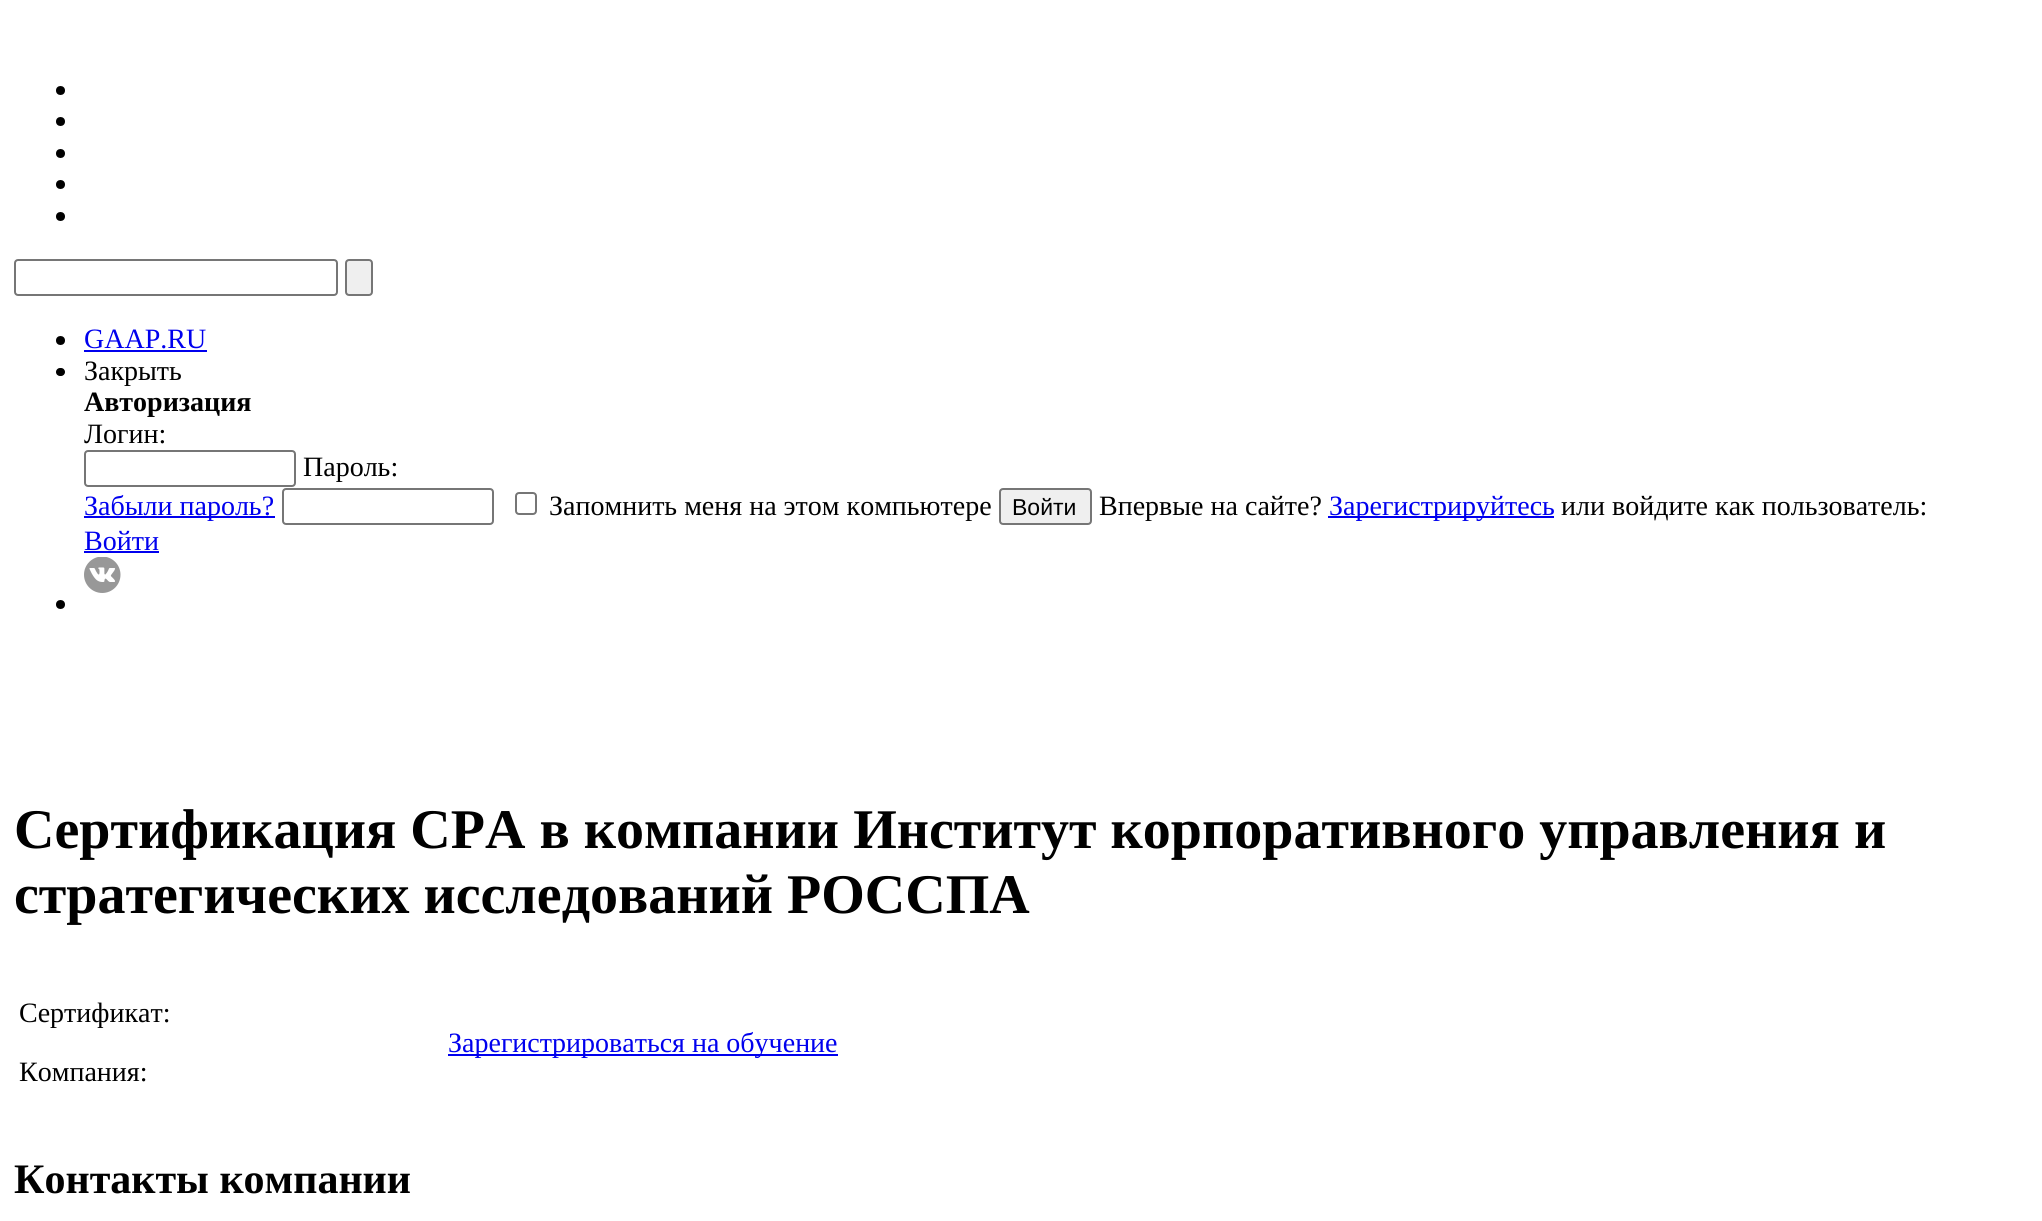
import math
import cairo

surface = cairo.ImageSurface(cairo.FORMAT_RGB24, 2042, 1221)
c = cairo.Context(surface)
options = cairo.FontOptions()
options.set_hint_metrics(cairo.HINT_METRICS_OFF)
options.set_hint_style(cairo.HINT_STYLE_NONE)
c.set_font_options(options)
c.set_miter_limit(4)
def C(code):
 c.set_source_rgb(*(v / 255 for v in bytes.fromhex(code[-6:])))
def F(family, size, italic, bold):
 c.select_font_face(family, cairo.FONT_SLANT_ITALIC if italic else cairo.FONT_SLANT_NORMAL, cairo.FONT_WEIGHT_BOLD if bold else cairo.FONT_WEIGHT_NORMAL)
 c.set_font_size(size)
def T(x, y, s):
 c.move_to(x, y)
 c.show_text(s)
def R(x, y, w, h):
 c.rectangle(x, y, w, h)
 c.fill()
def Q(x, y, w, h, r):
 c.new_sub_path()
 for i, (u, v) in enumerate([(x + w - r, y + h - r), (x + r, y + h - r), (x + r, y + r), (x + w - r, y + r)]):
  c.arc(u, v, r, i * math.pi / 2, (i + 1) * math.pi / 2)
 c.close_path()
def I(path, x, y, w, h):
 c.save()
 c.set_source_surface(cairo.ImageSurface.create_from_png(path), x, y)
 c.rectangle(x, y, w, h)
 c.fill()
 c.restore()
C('ffffff')
c.paint()
C('000000')
c.arc(60.5,90.5,4.5,0,2 * math.pi)
c.fill()
c.arc(60.5,121.5,4.5,0,2 * math.pi)
c.fill()
c.arc(60.5,153.5,4.5,0,2 * math.pi)
c.fill()
c.arc(60.5,184.5,4.5,0,2 * math.pi)
c.fill()
c.arc(60.5,216.5,4.5,0,2 * math.pi)
c.fill()
Q(15,260,322,35,3)
C('767676')
c.stroke()
C('efefef')
Q(346,260,26,35,3)
c.fill_preserve()
C('767676')
c.stroke()
C('000000')
c.arc(60.5,340.5,4.5,0,2 * math.pi)
c.fill()
F('Liberation Serif',28,0,0)
C('0000ee')
T(84,348,'GAAP.RU')
R(84,350,123,2)
C('000000')
Q(56,368,9,8,4)
c.fill()
T(84,380,'Закрыть')
F('Liberation Serif',28,0,1)
T(84,411,'Авторизация')
F('Liberation Serif',28,0,0)
T(84,443,'Логин:')
Q(85,451,210,35,3)
C('767676')
c.stroke()
C('000000')
T(303,476,'Пароль:')
C('0000ee')
R(84,516,191,2)
T(84,515,'Забыли пароль?')
Q(283,489,210,35,3)
C('767676')
c.stroke()
Q(516,493,20,21,3)
c.stroke()
C('000000')
T(549,515,'Запомнить меня на этом компьютере')
C('efefef')
Q(1000,489,91,35,3)
c.fill_preserve()
C('767676')
c.stroke()
F('Liberation Sans',23,0,0)
C('000000')
T(1012,515,'Войти')
F('Liberation Serif',28,0,0)
T(1099,515,'Впервые на сайте?')
C('0000ee')
R(1328,516,226,2)
T(1329,515,'Зарегистрируйтесь')
C('000000')
T(1561,515,'или войдите как пользователь:')
C('0000ee')
T(84,550,'Войти')
R(84,551,75,2)
I('1.png',84,557,37,36)
C('000000')
c.arc(60.5,604.5,4.5,0,2 * math.pi)
c.fill()
F('Liberation Serif',56,0,1)
T(14,848,'Сертификация CPA в компании Институт корпоративного управления и')
T(14,913,'стратегических исследований РОССПА')
F('Liberation Serif',28,0,0)
T(19,1022,'Сертификат:')
T(19,1081,'Компания:')
C('0000ee')
R(448,1054,390,2)
T(448,1052,'Зарегистрироваться на обучение')
F('Liberation Serif',42,0,1)
C('000000')
T(14,1193,'Контакты компании')
surface.write_to_png('o.png')
